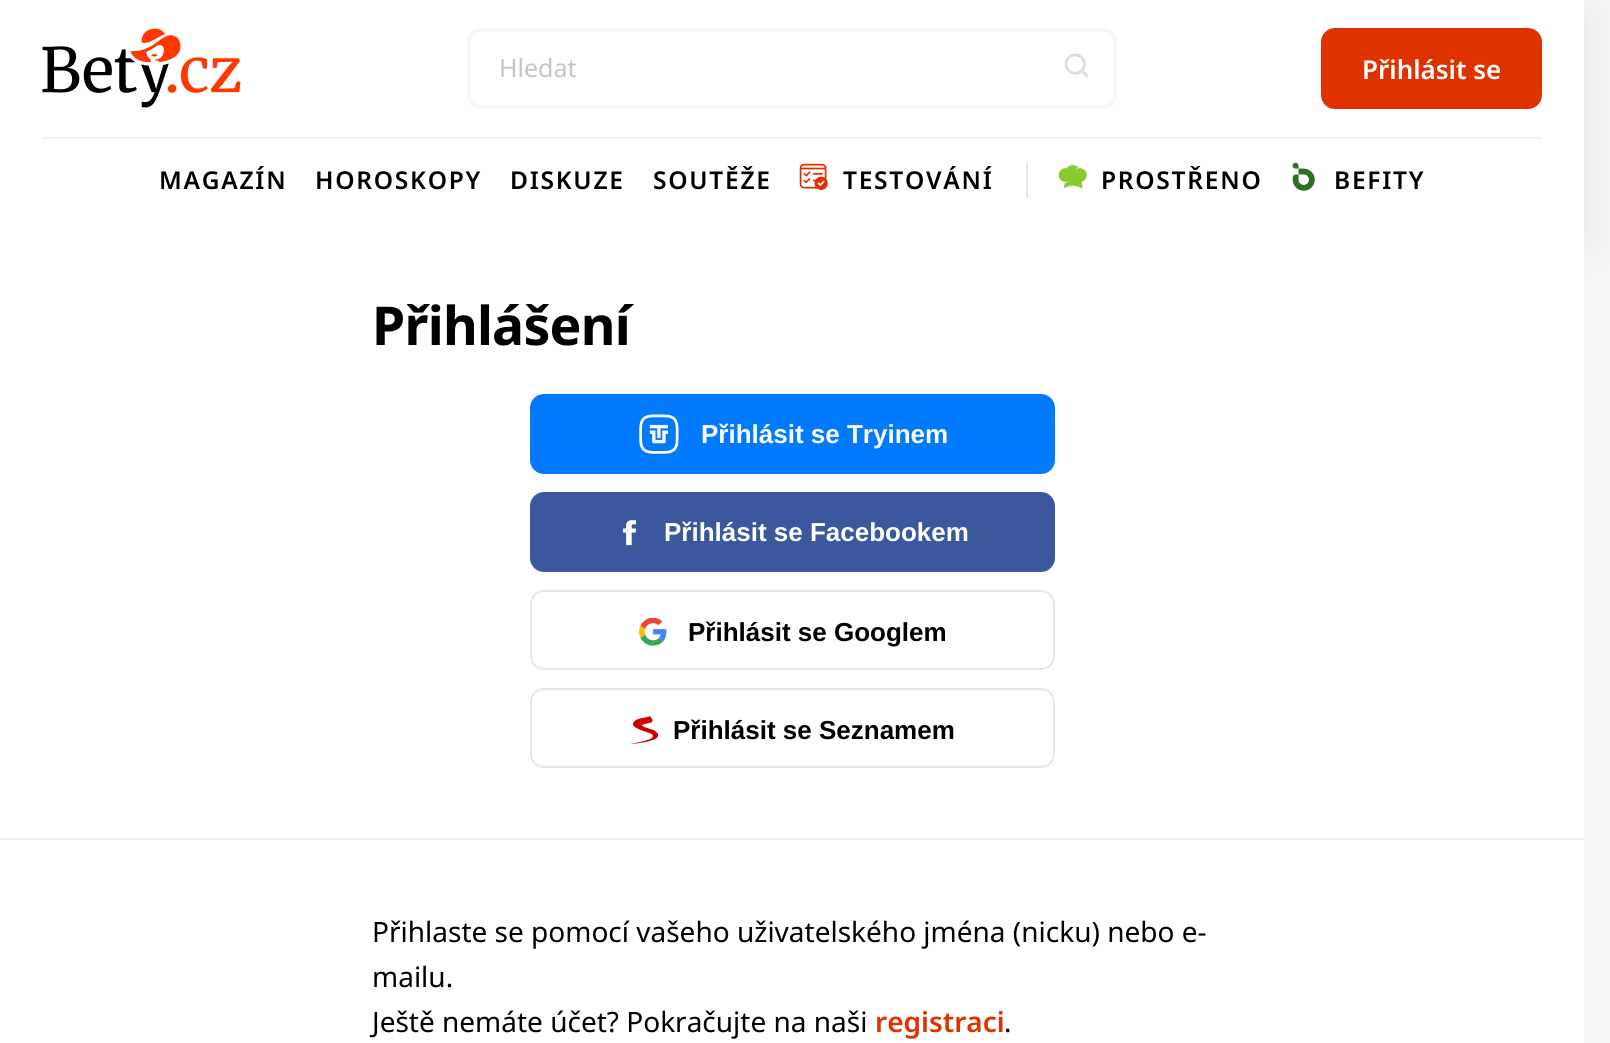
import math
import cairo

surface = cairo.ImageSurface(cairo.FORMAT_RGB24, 1610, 1043)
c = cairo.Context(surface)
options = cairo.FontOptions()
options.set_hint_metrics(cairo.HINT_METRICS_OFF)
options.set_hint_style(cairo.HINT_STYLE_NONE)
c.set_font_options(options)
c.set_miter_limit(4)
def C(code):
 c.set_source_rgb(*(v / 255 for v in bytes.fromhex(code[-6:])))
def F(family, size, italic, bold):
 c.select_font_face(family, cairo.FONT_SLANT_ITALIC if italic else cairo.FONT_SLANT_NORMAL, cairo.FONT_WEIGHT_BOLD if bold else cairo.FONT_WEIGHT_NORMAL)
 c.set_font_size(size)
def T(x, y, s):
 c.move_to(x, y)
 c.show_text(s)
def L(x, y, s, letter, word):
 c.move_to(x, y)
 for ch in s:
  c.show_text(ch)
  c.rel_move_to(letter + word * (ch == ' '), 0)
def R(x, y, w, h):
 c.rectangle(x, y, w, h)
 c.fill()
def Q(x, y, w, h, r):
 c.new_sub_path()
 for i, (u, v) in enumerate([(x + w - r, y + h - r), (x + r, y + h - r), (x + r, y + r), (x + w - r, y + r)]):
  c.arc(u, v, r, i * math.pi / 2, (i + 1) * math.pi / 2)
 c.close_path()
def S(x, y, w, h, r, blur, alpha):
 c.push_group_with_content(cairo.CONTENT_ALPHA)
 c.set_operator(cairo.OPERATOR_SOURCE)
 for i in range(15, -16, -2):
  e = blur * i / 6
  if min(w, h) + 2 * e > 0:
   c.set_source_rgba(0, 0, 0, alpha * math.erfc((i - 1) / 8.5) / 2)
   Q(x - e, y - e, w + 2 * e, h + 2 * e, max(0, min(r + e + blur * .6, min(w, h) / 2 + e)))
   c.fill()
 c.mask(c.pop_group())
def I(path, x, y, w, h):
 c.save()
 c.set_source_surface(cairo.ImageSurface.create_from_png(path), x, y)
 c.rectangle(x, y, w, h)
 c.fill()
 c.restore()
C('f6f6f6')
c.paint()
C('959da5')
S(0,14,1584,224,0,21,.2)
C('ffffff')
R(0,0,1584,224)
I('1.png',42,28,199,80)
Q(469,30,646,77,12)
C('f6f6f6')
c.set_line_width(4)
c.stroke()
F('Noto Sans',25,0,0)
C('c4c4c4')
T(499,77,'Hledat')
I('2.png',1064,53,24,24)
C('e03100')
Q(1321,28,221,81,14)
c.fill()
F('Noto Sans SemiBold',26,0,0)
C('ffffff')
T(1362,79,'Přihlásit se')
C('f2f2f2')
R(42,137,1500,2)
F('Noto Sans SemiBold',24.5,0,0)
C('000000')
L(159,189,'MAGAZÍN',1.75,0)
L(315,189,'HOROSKOPY',1.75,0)
L(510,189,'DISKUZE',1.75,0)
L(653,189,'SOUTĚŽE',1.75,0)
I('3.png',799,163,29,27)
L(843,189,'TESTOVÁNÍ',1.75,0)
C('e6e6e6')
R(1026,163,2,35)
I('4.png',1058,165,29,24)
C('000000')
L(1101,189,'PROSTŘENO',1.75,0)
I('5.png',1292,162,23,29)
L(1334,189,'BEFITY',1.75,0)
C('ffffff')
R(0,224,1584,819)
C('f2f2f2')
R(0,838,1584,2)
F('Noto Sans',53.5,0,1)
C('000000')
L(372,345,'Přihlášení',-.75,0)
C('017afe')
Q(530,394,525,80,14)
c.fill()
I('6.png',639,414,40,40)
F('Liberation Sans',26,0,1)
C('ffffff')
T(701,443,'Přihlásit se Tryinem')
C('3b579d')
Q(530,492,525,80,14)
c.fill()
I('7.png',623,520,14,26)
C('ffffff')
T(664,541,'Přihlásit se Facebookem')
Q(531,591,523,78,13)
C('e6e6e6')
c.set_line_width(2)
c.stroke()
I('8.png',639,618,28,28)
C('000000')
T(688,641,'Přihlásit se Googlem')
Q(531,689,523,78,13)
C('e6e6e6')
c.stroke()
I('9.png',630,716,28,28)
C('000000')
T(673,739,'Přihlásit se Seznamem')
F('Noto Sans',28,0,0)
T(372,942,'Přihlaste se pomocí vašeho uživatelského jména (nicku) nebo e-')
T(372,987,'mailu.')
T(372,1032,'Ještě nemáte účet? Pokračujte na naši')
F('Noto Sans SemiBold',28,0,0)
C('e03100')
T(875,1032,'registraci')
F('Noto Sans',28,0,0)
C('000000')
T(1004,1032,'.')
surface.write_to_png('o.png')
